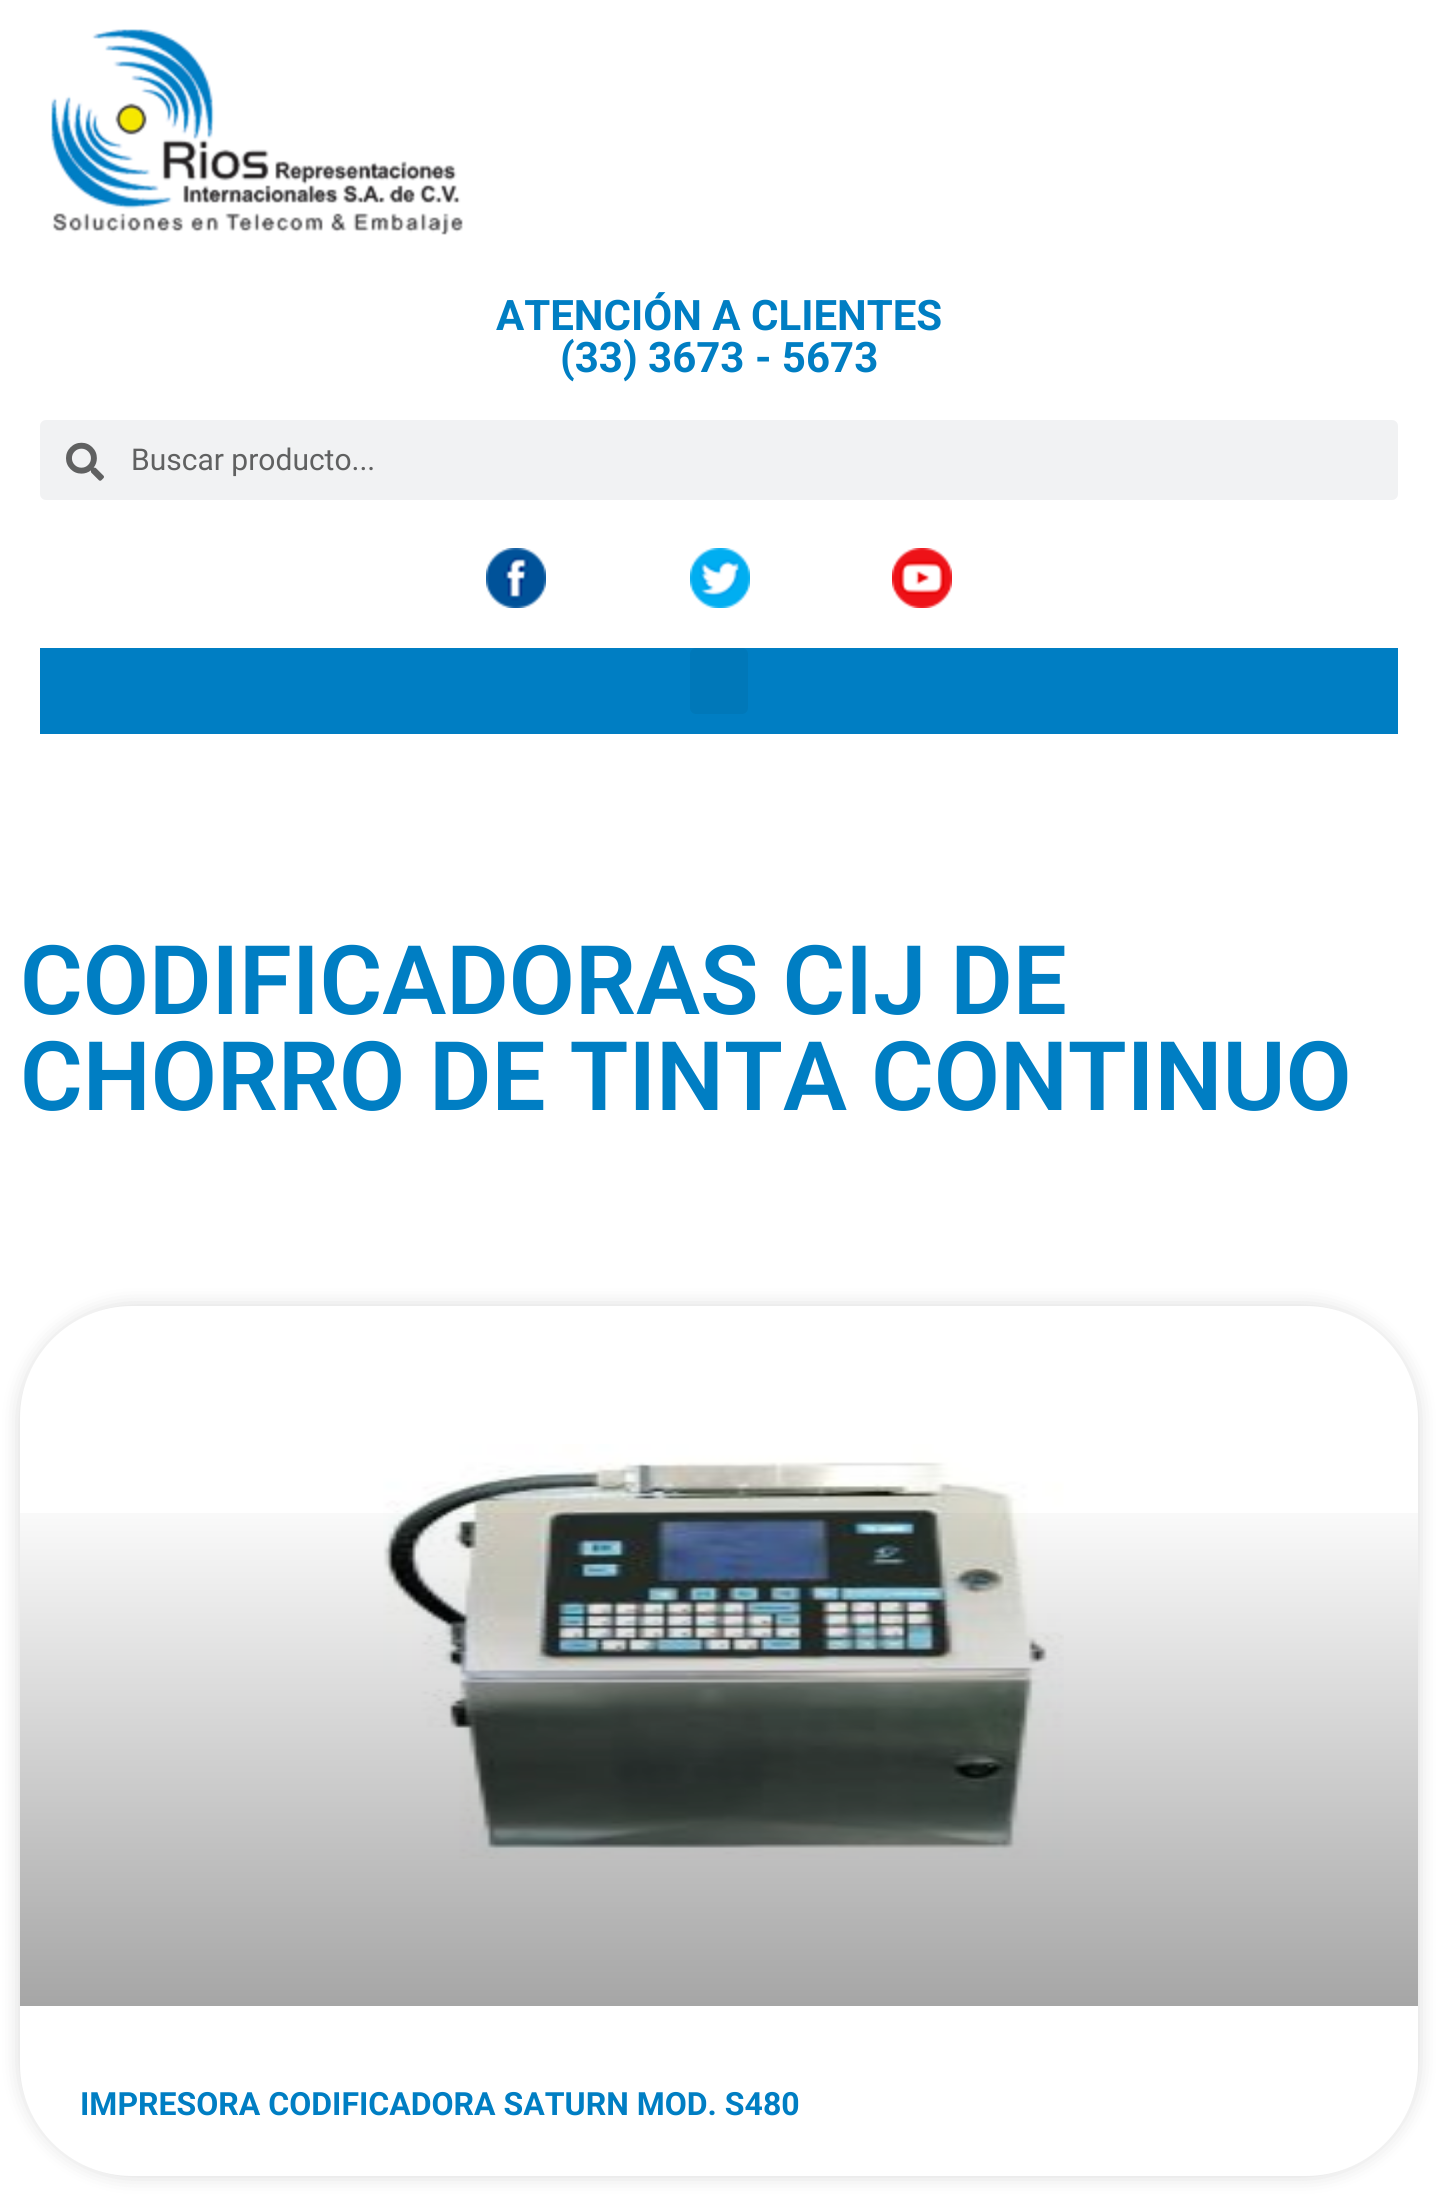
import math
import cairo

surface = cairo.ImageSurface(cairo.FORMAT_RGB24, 1438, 2210)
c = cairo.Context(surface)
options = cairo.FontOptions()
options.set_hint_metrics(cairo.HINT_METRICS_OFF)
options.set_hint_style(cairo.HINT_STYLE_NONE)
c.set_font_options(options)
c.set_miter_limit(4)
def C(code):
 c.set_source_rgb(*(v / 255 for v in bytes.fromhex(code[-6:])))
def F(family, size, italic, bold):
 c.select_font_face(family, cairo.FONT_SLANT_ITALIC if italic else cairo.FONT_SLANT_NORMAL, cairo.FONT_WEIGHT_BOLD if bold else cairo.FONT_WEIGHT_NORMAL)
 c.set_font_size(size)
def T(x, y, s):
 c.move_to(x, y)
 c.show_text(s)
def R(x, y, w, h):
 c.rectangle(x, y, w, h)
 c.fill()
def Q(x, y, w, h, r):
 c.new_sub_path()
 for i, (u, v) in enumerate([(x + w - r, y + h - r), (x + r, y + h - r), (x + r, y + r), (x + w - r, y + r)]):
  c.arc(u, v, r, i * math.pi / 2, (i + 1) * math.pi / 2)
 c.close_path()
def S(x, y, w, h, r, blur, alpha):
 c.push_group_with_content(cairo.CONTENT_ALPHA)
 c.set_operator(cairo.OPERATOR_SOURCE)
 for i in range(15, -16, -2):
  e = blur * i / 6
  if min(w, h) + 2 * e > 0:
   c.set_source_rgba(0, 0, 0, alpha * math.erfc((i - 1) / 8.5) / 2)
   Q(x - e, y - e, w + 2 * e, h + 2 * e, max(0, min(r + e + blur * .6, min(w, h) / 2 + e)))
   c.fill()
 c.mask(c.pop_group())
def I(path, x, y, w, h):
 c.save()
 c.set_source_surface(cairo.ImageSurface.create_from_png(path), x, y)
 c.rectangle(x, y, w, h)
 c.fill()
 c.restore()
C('ffffff')
c.paint()
I('1.png',51,29,412,206)
F('Roboto',42,0,1)
C('007ec3')
T(496,330,'ATENCIÓN A CLIENTES')
T(560,372,'(33) 3673 - 5673')
C('f1f2f3')
Q(40,420,1358,80,6)
c.fill()
I('2.png',66,442,38,39)
F('Roboto',30,0,0)
C('606161')
T(131,470,'Buscar producto...')
I('3.png',486,548,60,60)
I('4.png',690,548,60,60)
I('5.png',892,548,60,60)
C('007ec3')
R(40,648,1358,86)
C('0078b9')
Q(690,648,58,66,6)
c.fill()
F('Roboto SemiBold',96,0,0)
C('007ec3')
T(20,1014,'CODIFICADORAS CIJ DE')
T(20,1110,'CHORRO DE TINTA CONTINUO')
C('000000')
S(20,1306,1398,870,112,10,.15)
C('ffffff')
Q(20,1306,1398,870,112)
c.fill()
I('6.png',383,1444,681,415)
gradient = cairo.LinearGradient(719,2006,719,1306)
gradient.add_color_stop_rgba(0,0,0,0,.35)
gradient.add_color_stop_rgba(.75,0,0,0,0)
c.set_source(gradient)
R(20,1513,1398,493)
F('Roboto',32,0,1)
C('007ec3')
T(80,2115,'IMPRESORA CODIFICADORA SATURN MOD. S480')
surface.write_to_png('o.png')
